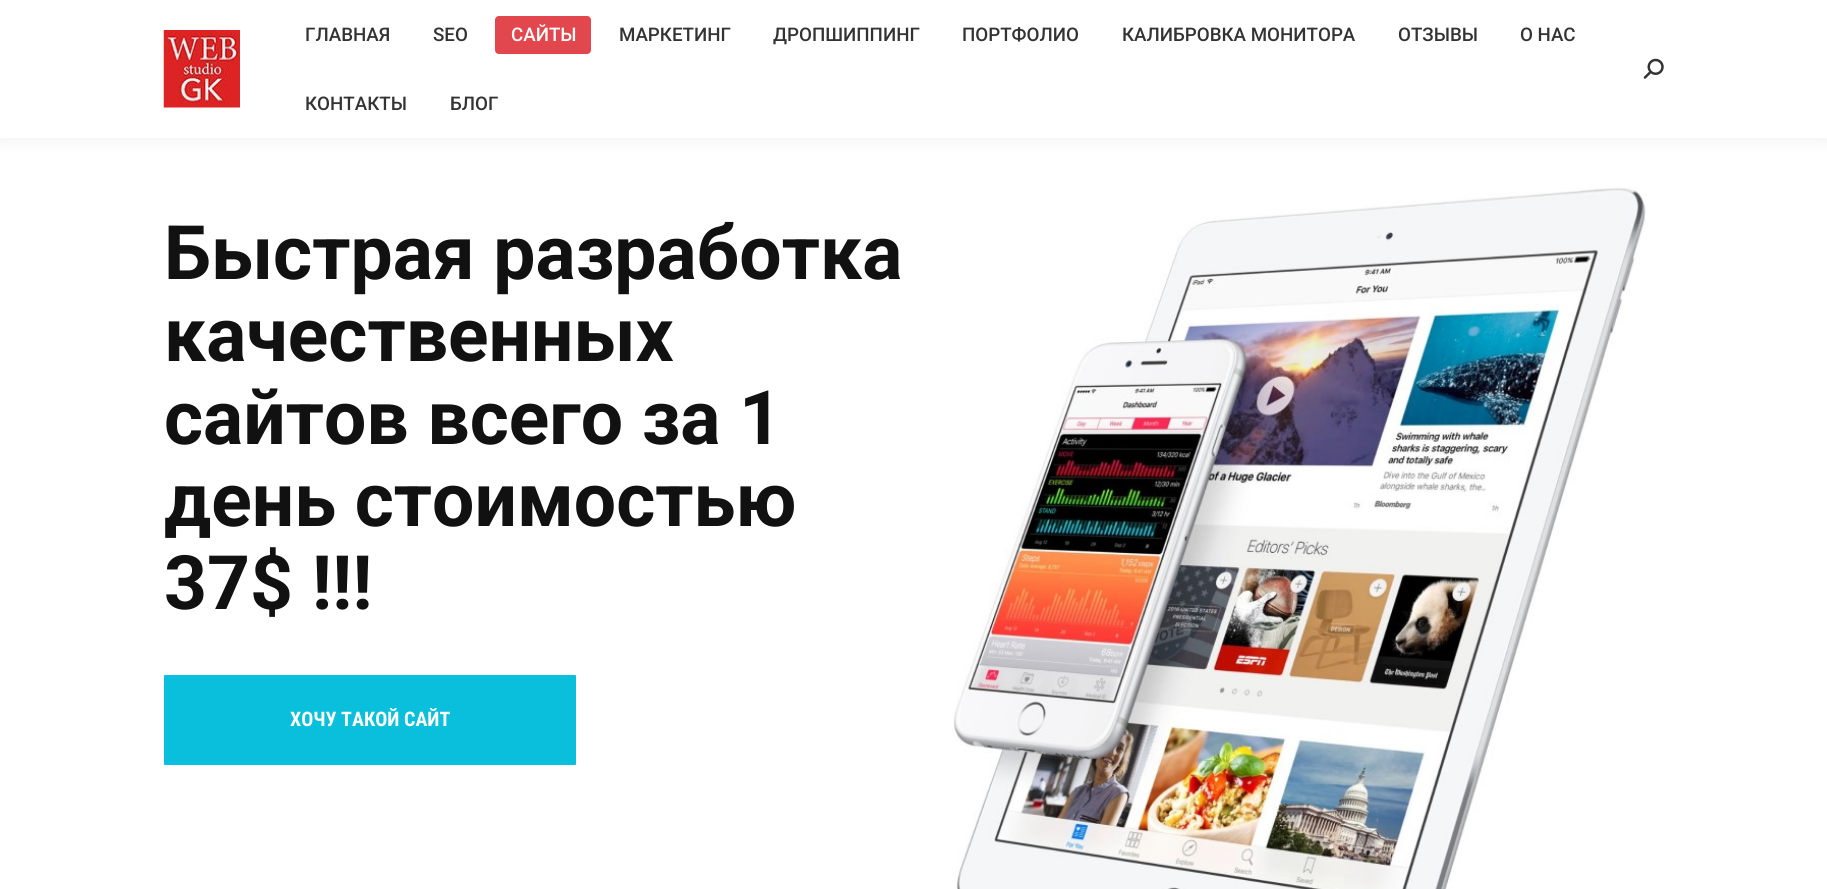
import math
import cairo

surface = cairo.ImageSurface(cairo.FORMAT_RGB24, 1827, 889)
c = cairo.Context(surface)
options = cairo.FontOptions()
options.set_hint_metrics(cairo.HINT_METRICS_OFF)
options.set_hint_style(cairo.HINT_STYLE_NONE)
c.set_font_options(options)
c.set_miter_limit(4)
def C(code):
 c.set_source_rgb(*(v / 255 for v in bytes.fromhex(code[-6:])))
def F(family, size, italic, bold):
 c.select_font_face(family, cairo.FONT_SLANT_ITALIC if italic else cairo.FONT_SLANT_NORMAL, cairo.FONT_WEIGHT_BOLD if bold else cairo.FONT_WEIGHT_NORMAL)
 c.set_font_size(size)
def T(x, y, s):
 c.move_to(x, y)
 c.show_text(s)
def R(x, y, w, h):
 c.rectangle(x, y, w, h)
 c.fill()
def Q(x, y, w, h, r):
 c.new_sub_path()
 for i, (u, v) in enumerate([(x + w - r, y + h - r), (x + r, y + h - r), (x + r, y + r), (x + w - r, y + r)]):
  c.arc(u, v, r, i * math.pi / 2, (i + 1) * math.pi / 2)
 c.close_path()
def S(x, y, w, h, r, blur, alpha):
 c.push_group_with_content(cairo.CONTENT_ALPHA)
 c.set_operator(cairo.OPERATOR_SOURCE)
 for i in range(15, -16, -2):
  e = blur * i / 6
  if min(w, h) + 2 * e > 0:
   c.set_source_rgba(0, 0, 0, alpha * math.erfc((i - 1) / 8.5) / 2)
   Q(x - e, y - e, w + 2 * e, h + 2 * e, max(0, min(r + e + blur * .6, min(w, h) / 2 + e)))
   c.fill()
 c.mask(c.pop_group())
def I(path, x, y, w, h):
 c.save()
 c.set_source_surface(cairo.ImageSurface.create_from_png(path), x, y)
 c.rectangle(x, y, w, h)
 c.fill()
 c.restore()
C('ffffff')
c.paint()
C('000000')
S(-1,-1,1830,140,0,9.5,.07)
C('ffffff')
R(0,0,1827,138)
I('1.png',163,30,77,78)
F('Roboto Medium',18.75,0,0)
C('333333')
T(305,41,'ГЛАВНАЯ')
T(433,41,'SEO')
C('e1474d')
Q(495,16,96,38,4)
c.fill()
C('ffffff')
T(511,41,'САЙТЫ')
C('333333')
T(619,41,'МАРКЕТИНГ')
T(773,41,'ДРОПШИППИНГ')
T(962,41,'ПОРТФОЛИО')
T(1122,41,'КАЛИБРОВКА МОНИТОРА')
T(1398,41,'ОТЗЫВЫ')
T(1520,41,'О НАС')
T(305,110,'КОНТАКТЫ')
T(450,110,'БЛОГ')
I('2.png',1643,58,21,21)
F('Roboto',75,0,1)
C('111111')
T(164,279,'Быстрая разработка')
T(164,361,'качественных')
T(164,444,'сайтов всего за 1')
T(164,526,'день стоимостью')
T(164,609,'37$ !!!')
C('0abfdb')
Q(164,675,412,90,1)
c.fill()
F('Roboto Condensed',20,0,1)
C('ffffff')
T(290,726,'ХОЧУ ТАКОЙ САЙТ')
I('3.png',953,187,693,702)
surface.write_to_png('o.png')
